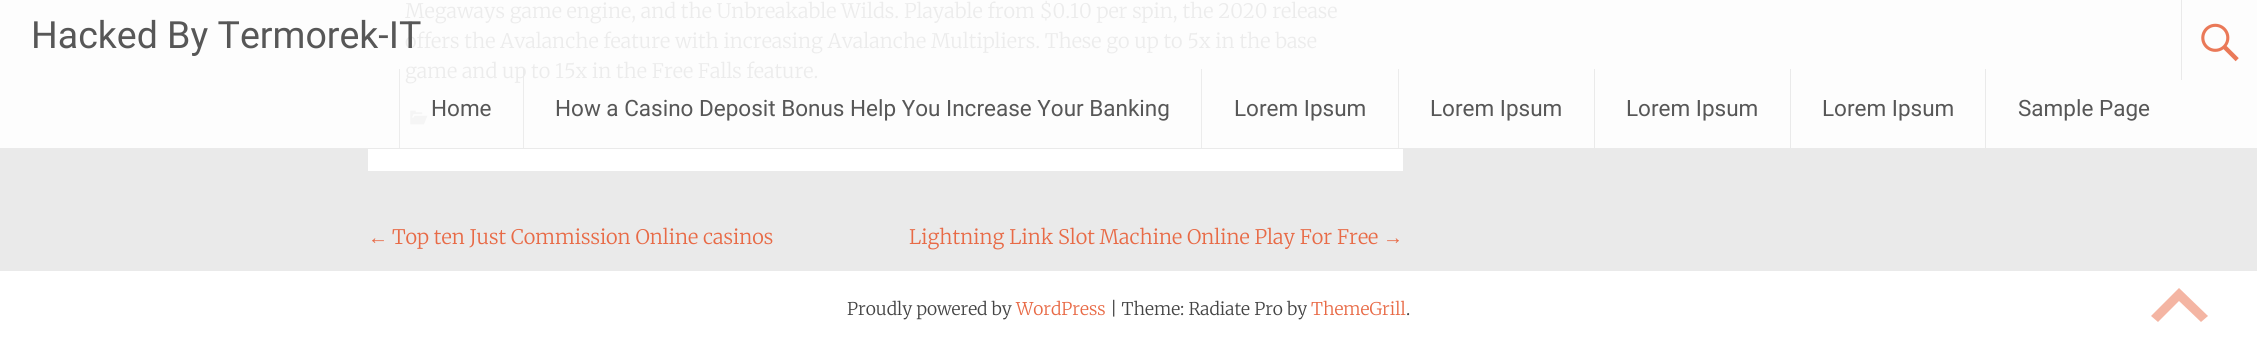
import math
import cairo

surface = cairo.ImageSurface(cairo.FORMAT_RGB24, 2257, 347)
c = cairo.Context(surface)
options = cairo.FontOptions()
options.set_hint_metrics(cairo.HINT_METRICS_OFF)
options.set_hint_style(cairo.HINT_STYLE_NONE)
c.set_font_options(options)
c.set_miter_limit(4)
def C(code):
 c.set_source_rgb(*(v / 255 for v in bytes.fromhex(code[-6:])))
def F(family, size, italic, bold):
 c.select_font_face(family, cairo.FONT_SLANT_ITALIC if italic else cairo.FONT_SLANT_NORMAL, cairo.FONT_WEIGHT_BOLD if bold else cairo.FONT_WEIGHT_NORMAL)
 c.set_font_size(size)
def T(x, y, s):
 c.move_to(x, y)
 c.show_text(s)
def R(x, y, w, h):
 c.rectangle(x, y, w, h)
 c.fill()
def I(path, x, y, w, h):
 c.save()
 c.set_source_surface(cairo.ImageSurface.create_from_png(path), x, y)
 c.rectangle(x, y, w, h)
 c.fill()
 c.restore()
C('eaeaea')
c.paint()
C('fdfdfd')
R(0,0,2257,148)
C('ffffff')
R(368,149,1035,22)
F('Merriweather Light',20,0,0)
C('ececec')
T(405,18,'Megaways game engine, and the Unbreakable Wilds. Playable from $0.10 per spin, the 2020 release')
T(405,48,'offers the Avalanche feature with increasing Avalanche Multipliers. These go up to 5x in the base')
T(405,78,'game and up to 15x in the Free Falls feature.')
I('1.png',410,110,18,15)
F('Liberation Serif',20,0,0)
C('e86a46')
T(368,244,'←')
F('Merriweather Light',20,0,0)
T(392,244,'Top ten Just Commission Online casinos')
T(909,244,'Lightning Link Slot Machine Online Play For Free')
F('Liberation Serif',20,0,0)
T(1383,244,'→')
F('Roboto',37.5,0,0)
C('575757')
T(31,48,'Hacked By Termorek-IT')
C('eaeaea')
R(2181,0,1,80)
I('2.png',2201,23,38,39)
C('ececec')
R(399,69,1,79)
F('Roboto',22.5,0,0)
C('575757')
T(431,116,'Home')
c.set_source_rgba(0.918,0.918,0.918,0.9)
R(523,69,1,79)
C('575757')
T(555,116,'How a Casino Deposit Bonus Help You Increase Your Banking')
C('ececec')
R(1201,69,1,79)
C('575757')
T(1234,116,'Lorem Ipsum')
C('ececec')
R(1398,69,1,79)
C('575757')
T(1430,116,'Lorem Ipsum')
C('eaeaea')
R(1594,69,1,79)
C('575757')
T(1626,116,'Lorem Ipsum')
C('eaeaea')
R(1790,69,1,79)
C('575757')
T(1822,116,'Lorem Ipsum')
C('eaeaea')
R(1985,69,1,79)
C('575757')
T(2018,116,'Sample Page')
C('ffffff')
R(0,271,2257,76)
F('Merriweather Light',17.5,0,0)
C('444444')
T(847,315,'Proudly powered by')
C('e86a46')
T(1016,315,'WordPress')
C('444444')
T(1110,315,'| Theme: Radiate Pro by')
C('e86a46')
T(1311,315,'ThemeGrill')
C('444444')
T(1406,315,'.')
C('f4b5a3')
c.new_path()
c.move_to(2201,322)
c.line_to(2179,301)
c.line_to(2158,322)
c.line_to(2151,316)
c.line_to(2179,288)
c.line_to(2208,316)
c.close_path()
c.fill()
surface.write_to_png('o.png')
